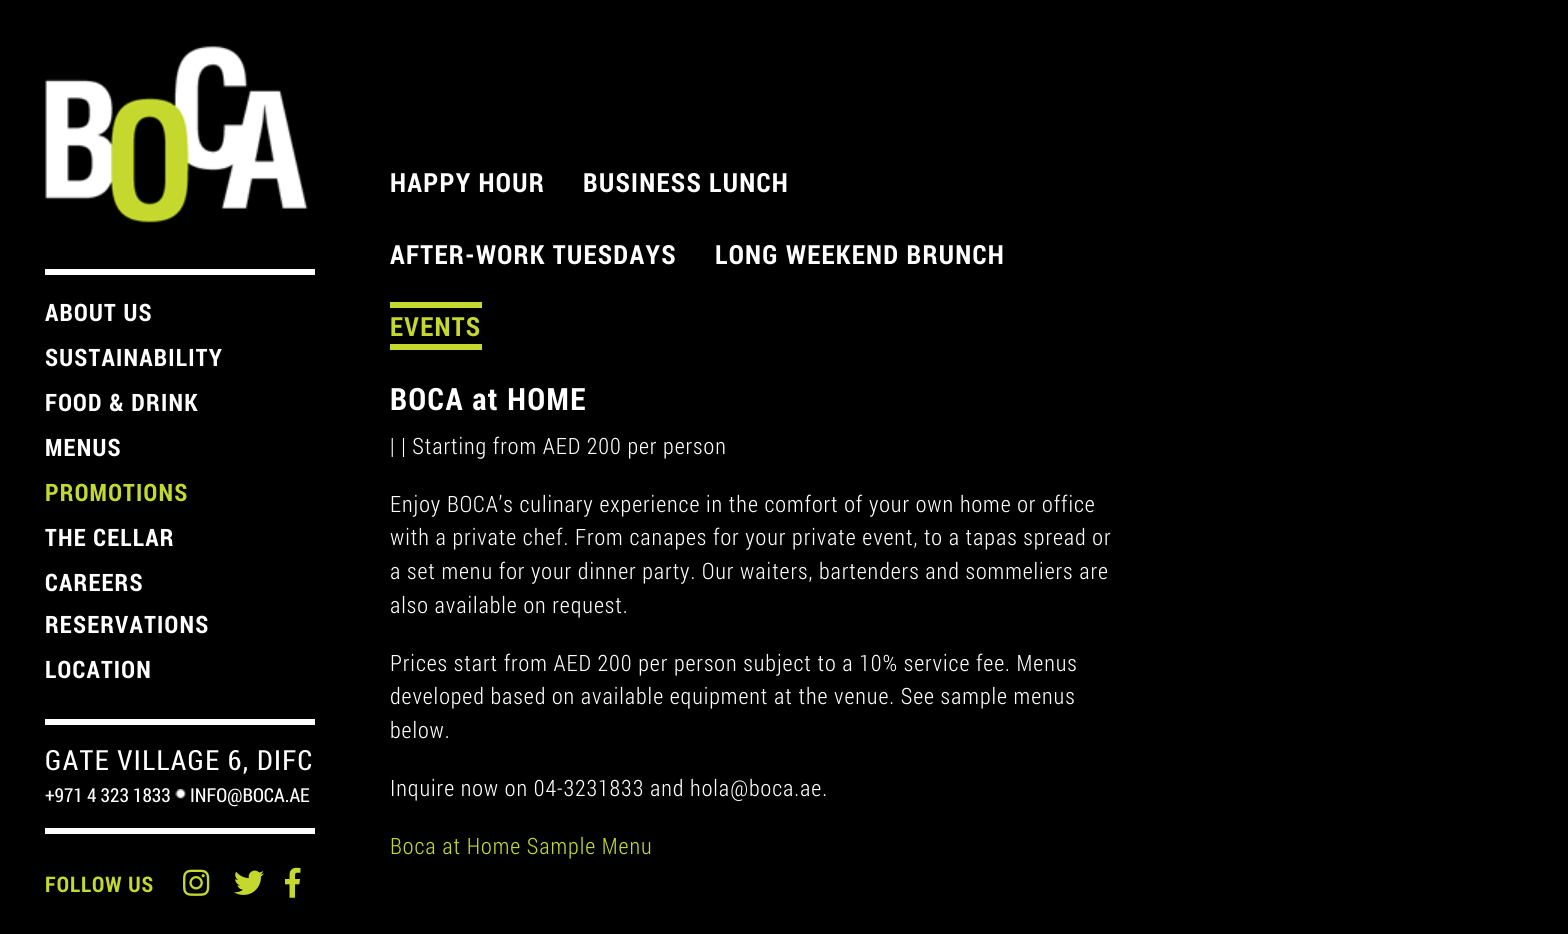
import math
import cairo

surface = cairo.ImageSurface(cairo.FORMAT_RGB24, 1568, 934)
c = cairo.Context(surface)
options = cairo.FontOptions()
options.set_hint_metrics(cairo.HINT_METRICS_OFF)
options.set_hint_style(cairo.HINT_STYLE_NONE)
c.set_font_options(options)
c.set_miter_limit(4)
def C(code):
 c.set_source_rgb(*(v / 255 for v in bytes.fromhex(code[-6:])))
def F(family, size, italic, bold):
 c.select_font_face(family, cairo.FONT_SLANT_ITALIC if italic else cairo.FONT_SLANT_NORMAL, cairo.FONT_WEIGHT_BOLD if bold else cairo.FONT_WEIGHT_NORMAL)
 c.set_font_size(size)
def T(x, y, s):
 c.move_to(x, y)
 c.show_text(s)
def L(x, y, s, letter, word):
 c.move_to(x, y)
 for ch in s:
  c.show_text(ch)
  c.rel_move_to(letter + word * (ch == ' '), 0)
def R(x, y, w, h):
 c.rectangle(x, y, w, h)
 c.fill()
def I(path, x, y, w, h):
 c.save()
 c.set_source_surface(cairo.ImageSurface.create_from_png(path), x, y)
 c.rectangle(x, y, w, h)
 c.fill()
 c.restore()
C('000000')
c.paint()
I('1.png',45,45,263,178)
C('ffffff')
R(45,269,270,6)
R(45,719,270,6)
F('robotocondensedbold',24,0,1)
L(45,321,'ABOUT US',1.25,0)
L(45,366,'SUSTAINABILITY',1.25,0)
L(45,411,'FOOD & DRINK',1.25,0)
L(45,456,'MENUS',1.25,0)
C('c4d82e')
L(45,501,'PROMOTIONS',1.25,0)
C('ffffff')
L(45,546,'THE CELLAR',1.25,0)
L(45,591,'CAREERS',1.25,0)
L(45,633,'RESERVATIONS',1.25,0)
L(45,678,'LOCATION',1.25,0)
R(45,828,270,6)
F('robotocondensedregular',27.75,0,0)
L(45,770,'GATE VILLAGE 6, DIFC',1.4,0)
F('robotocondensedregular',19.25,0,0)
T(45,802,'+971 4 323 1833')
I('2.png',175,789,11,10)
T(190,802,'INFO@BOCA.AE')
F('robotocondensedbold',21.5,0,1)
C('c4d82e')
L(45,892,'FOLLOW US',1,0)
I('3.png',183,869,27,27)
I('4.png',234,870,30,25)
I('5.png',285,867,16,31)
F('robotocondensedbold',26.4,0,1)
C('ffffff')
L(390,192,'HAPPY HOUR',1.3,0)
L(583,192,'BUSINESS LUNCH',1.3,0)
L(390,264,'AFTER-WORK TUESDAYS',1.3,0)
L(715,264,'LONG WEEKEND BRUNCH',1.3,0)
C('c4d82e')
R(390,302,92,6)
R(390,344,92,6)
L(390,336,'EVENTS',1.3,0)
F('robotocondensedbold',30.75,0,1)
C('ffffff')
L(390,410,'BOCA at HOME',1.5,0)
F('Roboto Condensed Light',22.5,0,0)
L(390,454,'| | Starting from AED 200 per person',.95,0)
L(390,512,'Enjoy BOCA’s culinary experience in the comfort of your own home or office',.95,0)
L(390,545,'with a private chef. From canapes for your private event, to a tapas spread or',.95,0)
L(390,579,'a set menu for your dinner party. Our waiters, bartenders and sommeliers are',.95,0)
L(390,613,'also available on request.',.95,0)
L(390,671,'Prices start from AED 200 per person subject to a 10% service fee. Menus',.95,0)
L(390,704,'developed based on available equipment at the venue. See sample menus',.95,0)
L(390,738,'below.',.95,0)
L(390,796,'Inquire now on 04-3231833 and hola@boca.ae.',.95,0)
C('c4d82e')
L(390,854,'Boca at Home Sample Menu',.95,0)
surface.write_to_png('o.png')
